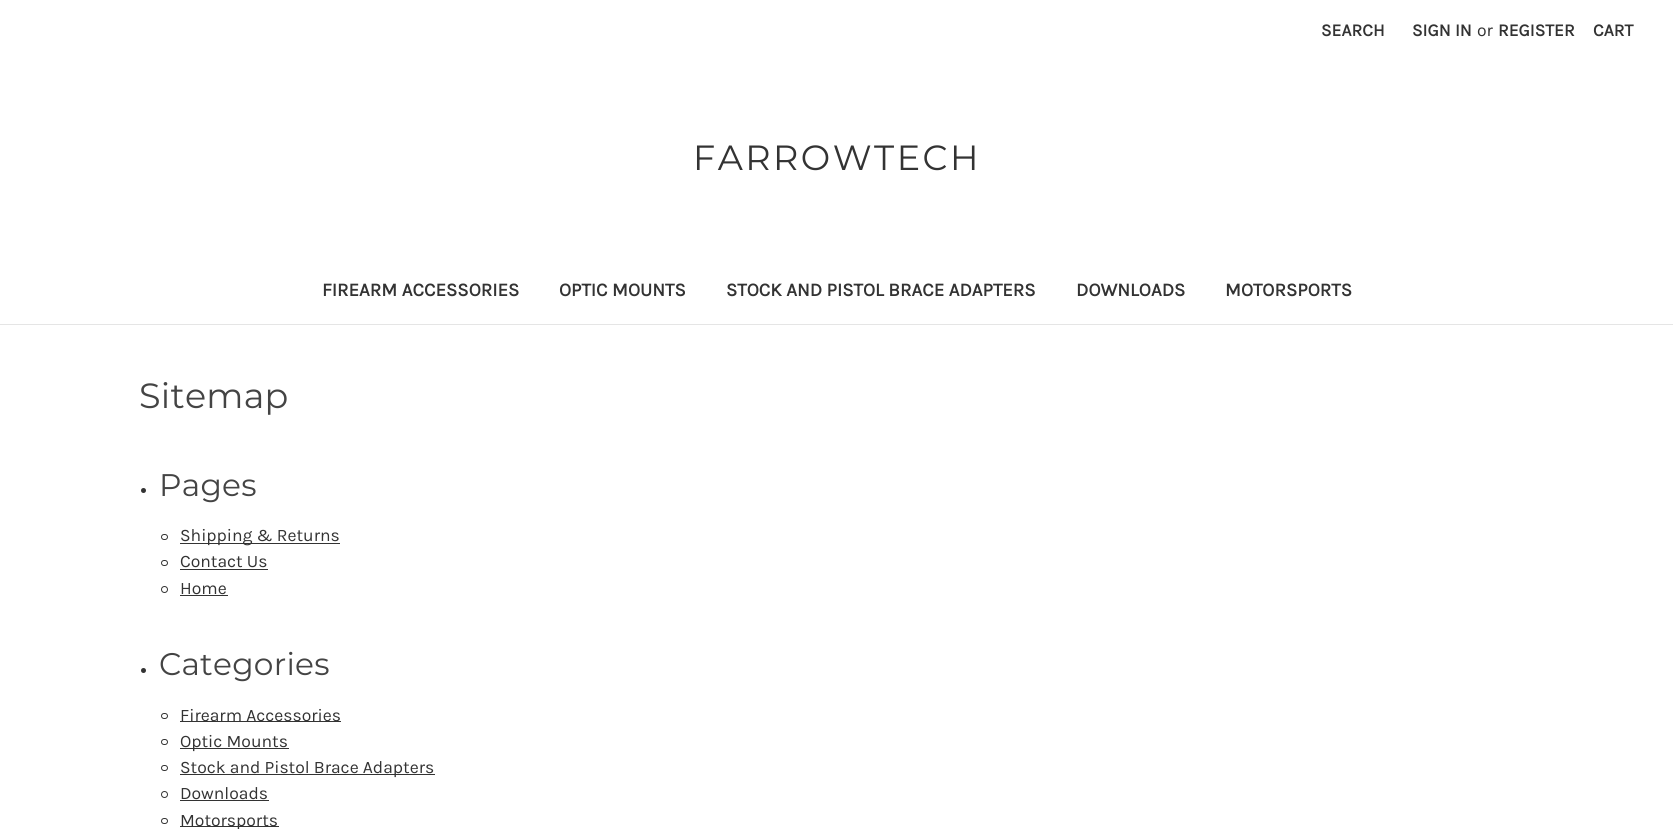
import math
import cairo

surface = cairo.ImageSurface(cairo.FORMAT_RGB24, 1673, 829)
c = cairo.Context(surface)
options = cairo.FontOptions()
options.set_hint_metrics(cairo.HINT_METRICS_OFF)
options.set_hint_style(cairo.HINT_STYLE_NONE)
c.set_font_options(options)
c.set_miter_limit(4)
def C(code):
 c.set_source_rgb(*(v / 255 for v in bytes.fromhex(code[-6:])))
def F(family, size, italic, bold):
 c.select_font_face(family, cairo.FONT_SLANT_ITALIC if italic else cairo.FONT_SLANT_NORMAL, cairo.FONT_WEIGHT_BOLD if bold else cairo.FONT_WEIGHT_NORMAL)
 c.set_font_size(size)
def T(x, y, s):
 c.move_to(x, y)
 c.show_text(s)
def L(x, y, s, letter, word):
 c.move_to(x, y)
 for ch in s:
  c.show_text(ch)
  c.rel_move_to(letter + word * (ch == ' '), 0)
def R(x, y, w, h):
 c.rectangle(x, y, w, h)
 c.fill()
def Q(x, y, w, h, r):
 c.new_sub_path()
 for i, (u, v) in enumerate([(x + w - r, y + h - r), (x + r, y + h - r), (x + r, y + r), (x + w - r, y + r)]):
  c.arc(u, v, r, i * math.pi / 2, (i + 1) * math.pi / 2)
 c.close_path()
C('ffffff')
c.paint()
C('e5e5e5')
R(0,324,1673,1)
F('Karla',17.5,0,1)
C('333333')
T(1321,36,'SEARCH')
T(1412,36,'SIGN IN')
F('Karla',17.5,0,0)
T(1477,36,'or')
F('Karla',17.5,0,1)
T(1498,36,'REGISTER')
T(1593,36,'CART')
F('Montserrat Thin',35,0,0)
L(693,170,'FARROWTECH',2.5,0)
F('Karla',18.75,0,1)
T(322,296,'FIREARM ACCESSORIES')
T(559,296,'OPTIC MOUNTS')
T(726,296,'STOCK AND PISTOL BRACE ADAPTERS')
T(1076,296,'DOWNLOADS')
T(1225,296,'MOTORSPORTS')
F('Montserrat Thin',35,0,0)
C('444444')
L(139,408,'Sitemap',.25,0)
C('333333')
c.new_path()
c.arc(143.5,490.5,2.5,0,2 * math.pi)
c.fill()
F('Montserrat Thin',31.25,0,0)
C('444444')
L(159,496,'Pages',.25,0)
Q(161.5,534.5,6,5,2.5)
C('333333')
c.set_line_width(1)
c.stroke()
R(180,543,160,1)
F('Karla',17.5,0,0)
T(180,541,'Shipping & Returns')
Q(161.5,560.5,6,5,2.5)
c.stroke()
T(180,567,'Contact Us')
R(180,569,88,1)
c.new_path()
c.arc(164.5,589.5,3,0,2 * math.pi)
c.stroke()
T(180,594,'Home')
R(180,595,48,1)
c.new_path()
c.arc(143.5,670.5,2.5,0,2 * math.pi)
c.fill()
F('Montserrat Thin',31.25,0,0)
C('444444')
L(159,675,'Categories',.25,0)
Q(161.5,713.5,6,5,2.5)
C('333333')
c.stroke()
R(180,721,161,1)
F('Karla',17.5,0,0)
T(180,721,'Firearm Accessories')
Q(161.5,739.5,6,5,2.5)
c.stroke()
R(180,748,109,1)
T(180,747,'Optic Mounts')
Q(161.5,765.5,6,5,2.5)
c.stroke()
R(180,774,255,1)
T(180,773,'Stock and Pistol Brace Adapters')
c.new_path()
c.arc(164.5,794.5,3,0,2 * math.pi)
c.stroke()
T(180,799,'Downloads')
R(180,800,89,1)
Q(161.5,818.5,6,5,2.5)
c.stroke()
R(180,826,99,1)
T(180,826,'Motorsports')
surface.write_to_png('o.png')
